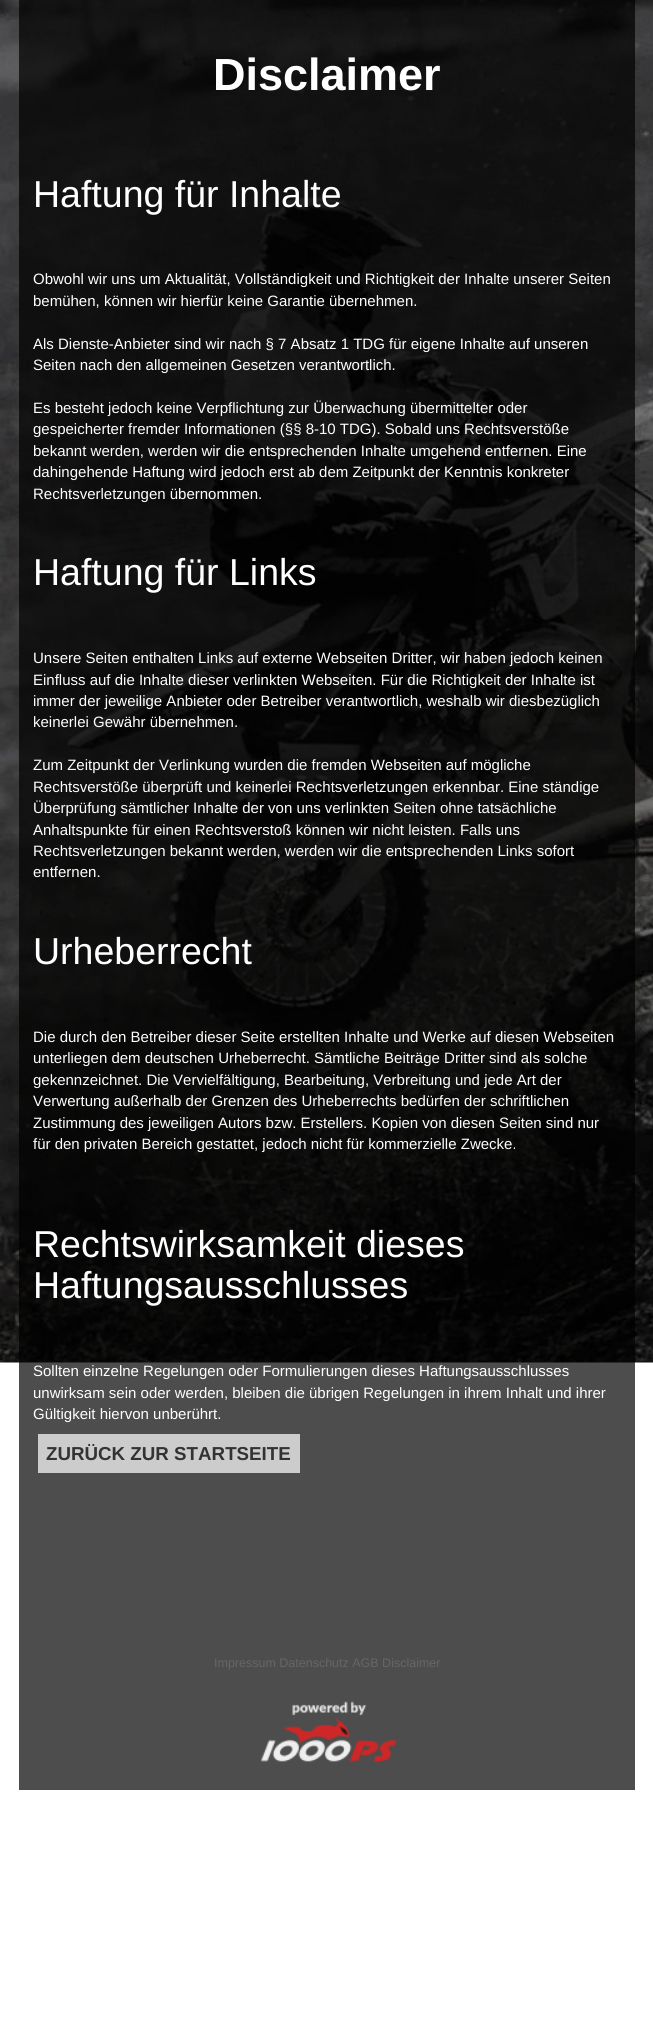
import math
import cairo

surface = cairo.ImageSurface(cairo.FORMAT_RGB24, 653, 2023)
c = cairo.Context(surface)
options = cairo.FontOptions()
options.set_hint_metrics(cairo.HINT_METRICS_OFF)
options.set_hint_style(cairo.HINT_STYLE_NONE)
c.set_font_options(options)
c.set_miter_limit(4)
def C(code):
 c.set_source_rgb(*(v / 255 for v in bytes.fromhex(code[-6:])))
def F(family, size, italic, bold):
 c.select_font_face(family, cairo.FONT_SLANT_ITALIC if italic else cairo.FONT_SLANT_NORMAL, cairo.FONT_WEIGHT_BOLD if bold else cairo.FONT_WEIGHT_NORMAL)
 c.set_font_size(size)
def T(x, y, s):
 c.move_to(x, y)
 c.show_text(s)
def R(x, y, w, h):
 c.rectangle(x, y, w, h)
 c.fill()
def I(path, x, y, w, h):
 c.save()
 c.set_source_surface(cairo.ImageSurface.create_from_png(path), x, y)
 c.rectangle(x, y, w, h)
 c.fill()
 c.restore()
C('ffffff')
c.paint()
C('4d4d4d')
R(19,1362,616,428)
I('1.png',0,0,653,1363)
F('Liberation Sans',45,0,1)
C('ffffff')
T(213,90,'Disclaimer')
F('Liberation Sans',37.5,0,0)
T(33,207,'Haftung für Inhalte')
F('Liberation Sans',15,0,0)
T(33,284,'Obwohl wir uns um Aktualität, Vollständigkeit und Richtigkeit der Inhalte unserer Seiten')
T(33,306,'bemühen, können wir hierfür keine Garantie übernehmen.')
T(33,349,'Als Dienste-Anbieter sind wir nach § 7 Absatz 1 TDG für eigene Inhalte auf unseren')
T(33,370,'Seiten nach den allgemeinen Gesetzen verantwortlich.')
T(33,413,'Es besteht jedoch keine Verpflichtung zur Überwachung übermittelter oder')
T(33,434,'gespeicherter fremder Informationen (§§ 8-10 TDG). Sobald uns Rechtsverstöße')
T(33,456,'bekannt werden, werden wir die entsprechenden Inhalte umgehend entfernen. Eine')
T(33,477,'dahingehende Haftung wird jedoch erst ab dem Zeitpunkt der Kenntnis konkreter')
T(33,499,'Rechtsverletzungen übernommen.')
F('Liberation Sans',37.5,0,0)
T(33,585,'Haftung für Links')
F('Liberation Sans',15,0,0)
T(33,663,'Unsere Seiten enthalten Links auf externe Webseiten Dritter, wir haben jedoch keinen')
T(33,685,'Einfluss auf die Inhalte dieser verlinkten Webseiten. Für die Richtigkeit der Inhalte ist')
T(33,706,'immer der jeweilige Anbieter oder Betreiber verantwortlich, weshalb wir diesbezüglich')
T(33,727,'keinerlei Gewähr übernehmen.')
T(33,770,'Zum Zeitpunkt der Verlinkung wurden die fremden Webseiten auf mögliche')
T(33,792,'Rechtsverstöße überprüft und keinerlei Rechtsverletzungen erkennbar. Eine ständige')
T(33,813,'Überprüfung sämtlicher Inhalte der von uns verlinkten Seiten ohne tatsächliche')
T(33,835,'Anhaltspunkte für einen Rechtsverstoß können wir nicht leisten. Falls uns')
T(33,856,'Rechtsverletzungen bekannt werden, werden wir die entsprechenden Links sofort')
T(33,877,'entfernen.')
F('Liberation Sans',37.5,0,0)
T(33,964,'Urheberrecht')
F('Liberation Sans',15,0,0)
T(33,1042,'Die durch den Betreiber dieser Seite erstellten Inhalte und Werke auf diesen Webseiten')
T(33,1063,'unterliegen dem deutschen Urheberrecht. Sämtliche Beiträge Dritter sind als solche')
T(33,1085,'gekennzeichnet. Die Vervielfältigung, Bearbeitung, Verbreitung und jede Art der')
T(33,1106,'Verwertung außerhalb der Grenzen des Urheberrechts bedürfen der schriftlichen')
T(33,1128,'Zustimmung des jeweiligen Autors bzw. Erstellers. Kopien von diesen Seiten sind nur')
T(33,1149,'für den privaten Bereich gestattet, jedoch nicht für kommerzielle Zwecke.')
F('Liberation Sans',37.5,0,0)
T(33,1257,'Rechtswirksamkeit dieses')
T(33,1298,'Haftungsausschlusses')
F('Liberation Sans',15,0,0)
T(33,1376,'Sollten einzelne Regelungen oder Formulierungen dieses Haftungsausschlusses')
T(33,1398,'unwirksam sein oder werden, bleiben die übrigen Regelungen in ihrem Inhalt und ihrer')
T(33,1419,'Gültigkeit hiervon unberührt.')
C('cccccc')
R(38,1434,262,39)
F('Liberation Sans',18.75,0,1)
C('333333')
T(46,1460,'ZURÜCK ZUR STARTSEITE')
F('Liberation Sans',12.5,0,0)
C('666666')
T(214,1667,'Impressum Datenschutz AGB Disclaimer')
I('2.png',261,1701,136,61)
surface.write_to_png('o.png')
